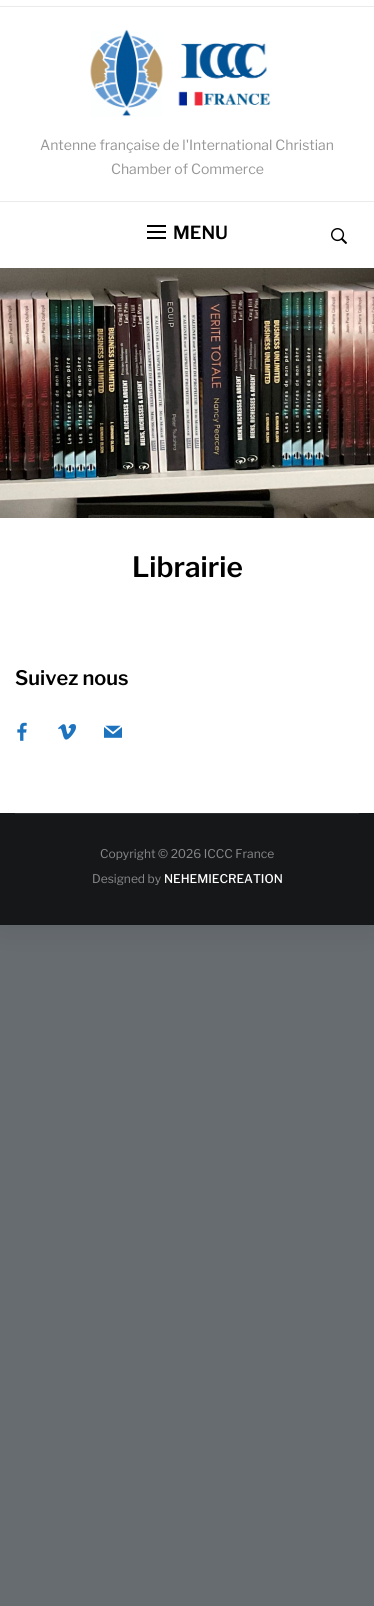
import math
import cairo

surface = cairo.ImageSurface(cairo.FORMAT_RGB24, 374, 1606)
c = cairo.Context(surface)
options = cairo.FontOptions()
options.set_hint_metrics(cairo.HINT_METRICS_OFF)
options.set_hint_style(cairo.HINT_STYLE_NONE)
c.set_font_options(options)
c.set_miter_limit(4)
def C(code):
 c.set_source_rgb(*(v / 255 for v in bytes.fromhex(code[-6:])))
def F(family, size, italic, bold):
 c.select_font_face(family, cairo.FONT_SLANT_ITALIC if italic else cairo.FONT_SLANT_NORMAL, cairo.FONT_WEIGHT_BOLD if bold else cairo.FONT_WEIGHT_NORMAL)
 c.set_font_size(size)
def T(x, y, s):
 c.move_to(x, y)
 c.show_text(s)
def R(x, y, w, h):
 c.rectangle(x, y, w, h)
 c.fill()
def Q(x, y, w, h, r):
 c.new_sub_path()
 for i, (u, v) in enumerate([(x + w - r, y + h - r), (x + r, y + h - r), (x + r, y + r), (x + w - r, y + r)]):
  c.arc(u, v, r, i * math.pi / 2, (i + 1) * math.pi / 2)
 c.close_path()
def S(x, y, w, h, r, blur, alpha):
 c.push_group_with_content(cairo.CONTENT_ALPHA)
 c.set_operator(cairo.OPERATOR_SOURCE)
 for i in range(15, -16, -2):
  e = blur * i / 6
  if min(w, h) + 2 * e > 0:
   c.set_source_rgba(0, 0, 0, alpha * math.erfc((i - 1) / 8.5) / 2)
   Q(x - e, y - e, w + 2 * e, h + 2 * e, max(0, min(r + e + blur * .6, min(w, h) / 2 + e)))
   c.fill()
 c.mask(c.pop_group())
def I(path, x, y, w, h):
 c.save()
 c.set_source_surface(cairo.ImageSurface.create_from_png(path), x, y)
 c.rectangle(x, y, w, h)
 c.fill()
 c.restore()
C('676c71')
c.paint()
C('000000')
S(0,0,374,925,0,17.5,.1)
C('ffffff')
R(0,0,374,813)
C('ebebeb')
R(0,6,374,1)
I('1.png',90,29,181,88)
F('Libre Franklin',14,0,0)
C('969696')
T(40,150,'Antenne française de l\'International Christian')
T(111,174,'Chamber of Commerce')
C('ebebeb')
R(0,201,374,1)
C('000000')
R(147,225,19,2)
R(147,231,19,2)
R(147,237,19,2)
F('Libre Franklin SemiBold',18,0,0)
T(173,239,'MENU')
I('2.png',331,228,16,16)
I('3.png',0,268,374,250)
F('Libre Franklin SemiBold',28,0,0)
T(132,577,'Librairie')
F('Libre Franklin SemiBold',20,0,0)
T(15,685,'Suivez nous')
I('4.png',17,722,10,19)
I('5.png',58,724,18,16)
I('6.png',104,725,18,13)
C('161719')
R(0,813,374,112)
C('2d2e30')
R(15,813,344,1)
F('Libre Franklin',12,0,0)
C('87888a')
T(100,858,'Copyright © 2026 ICCC France')
T(92,883,'Designed by')
F('Libre Franklin Medium',12,0,0)
C('ffffff')
T(164,883,'NEHEMIECREATION')
surface.write_to_png('o.png')
